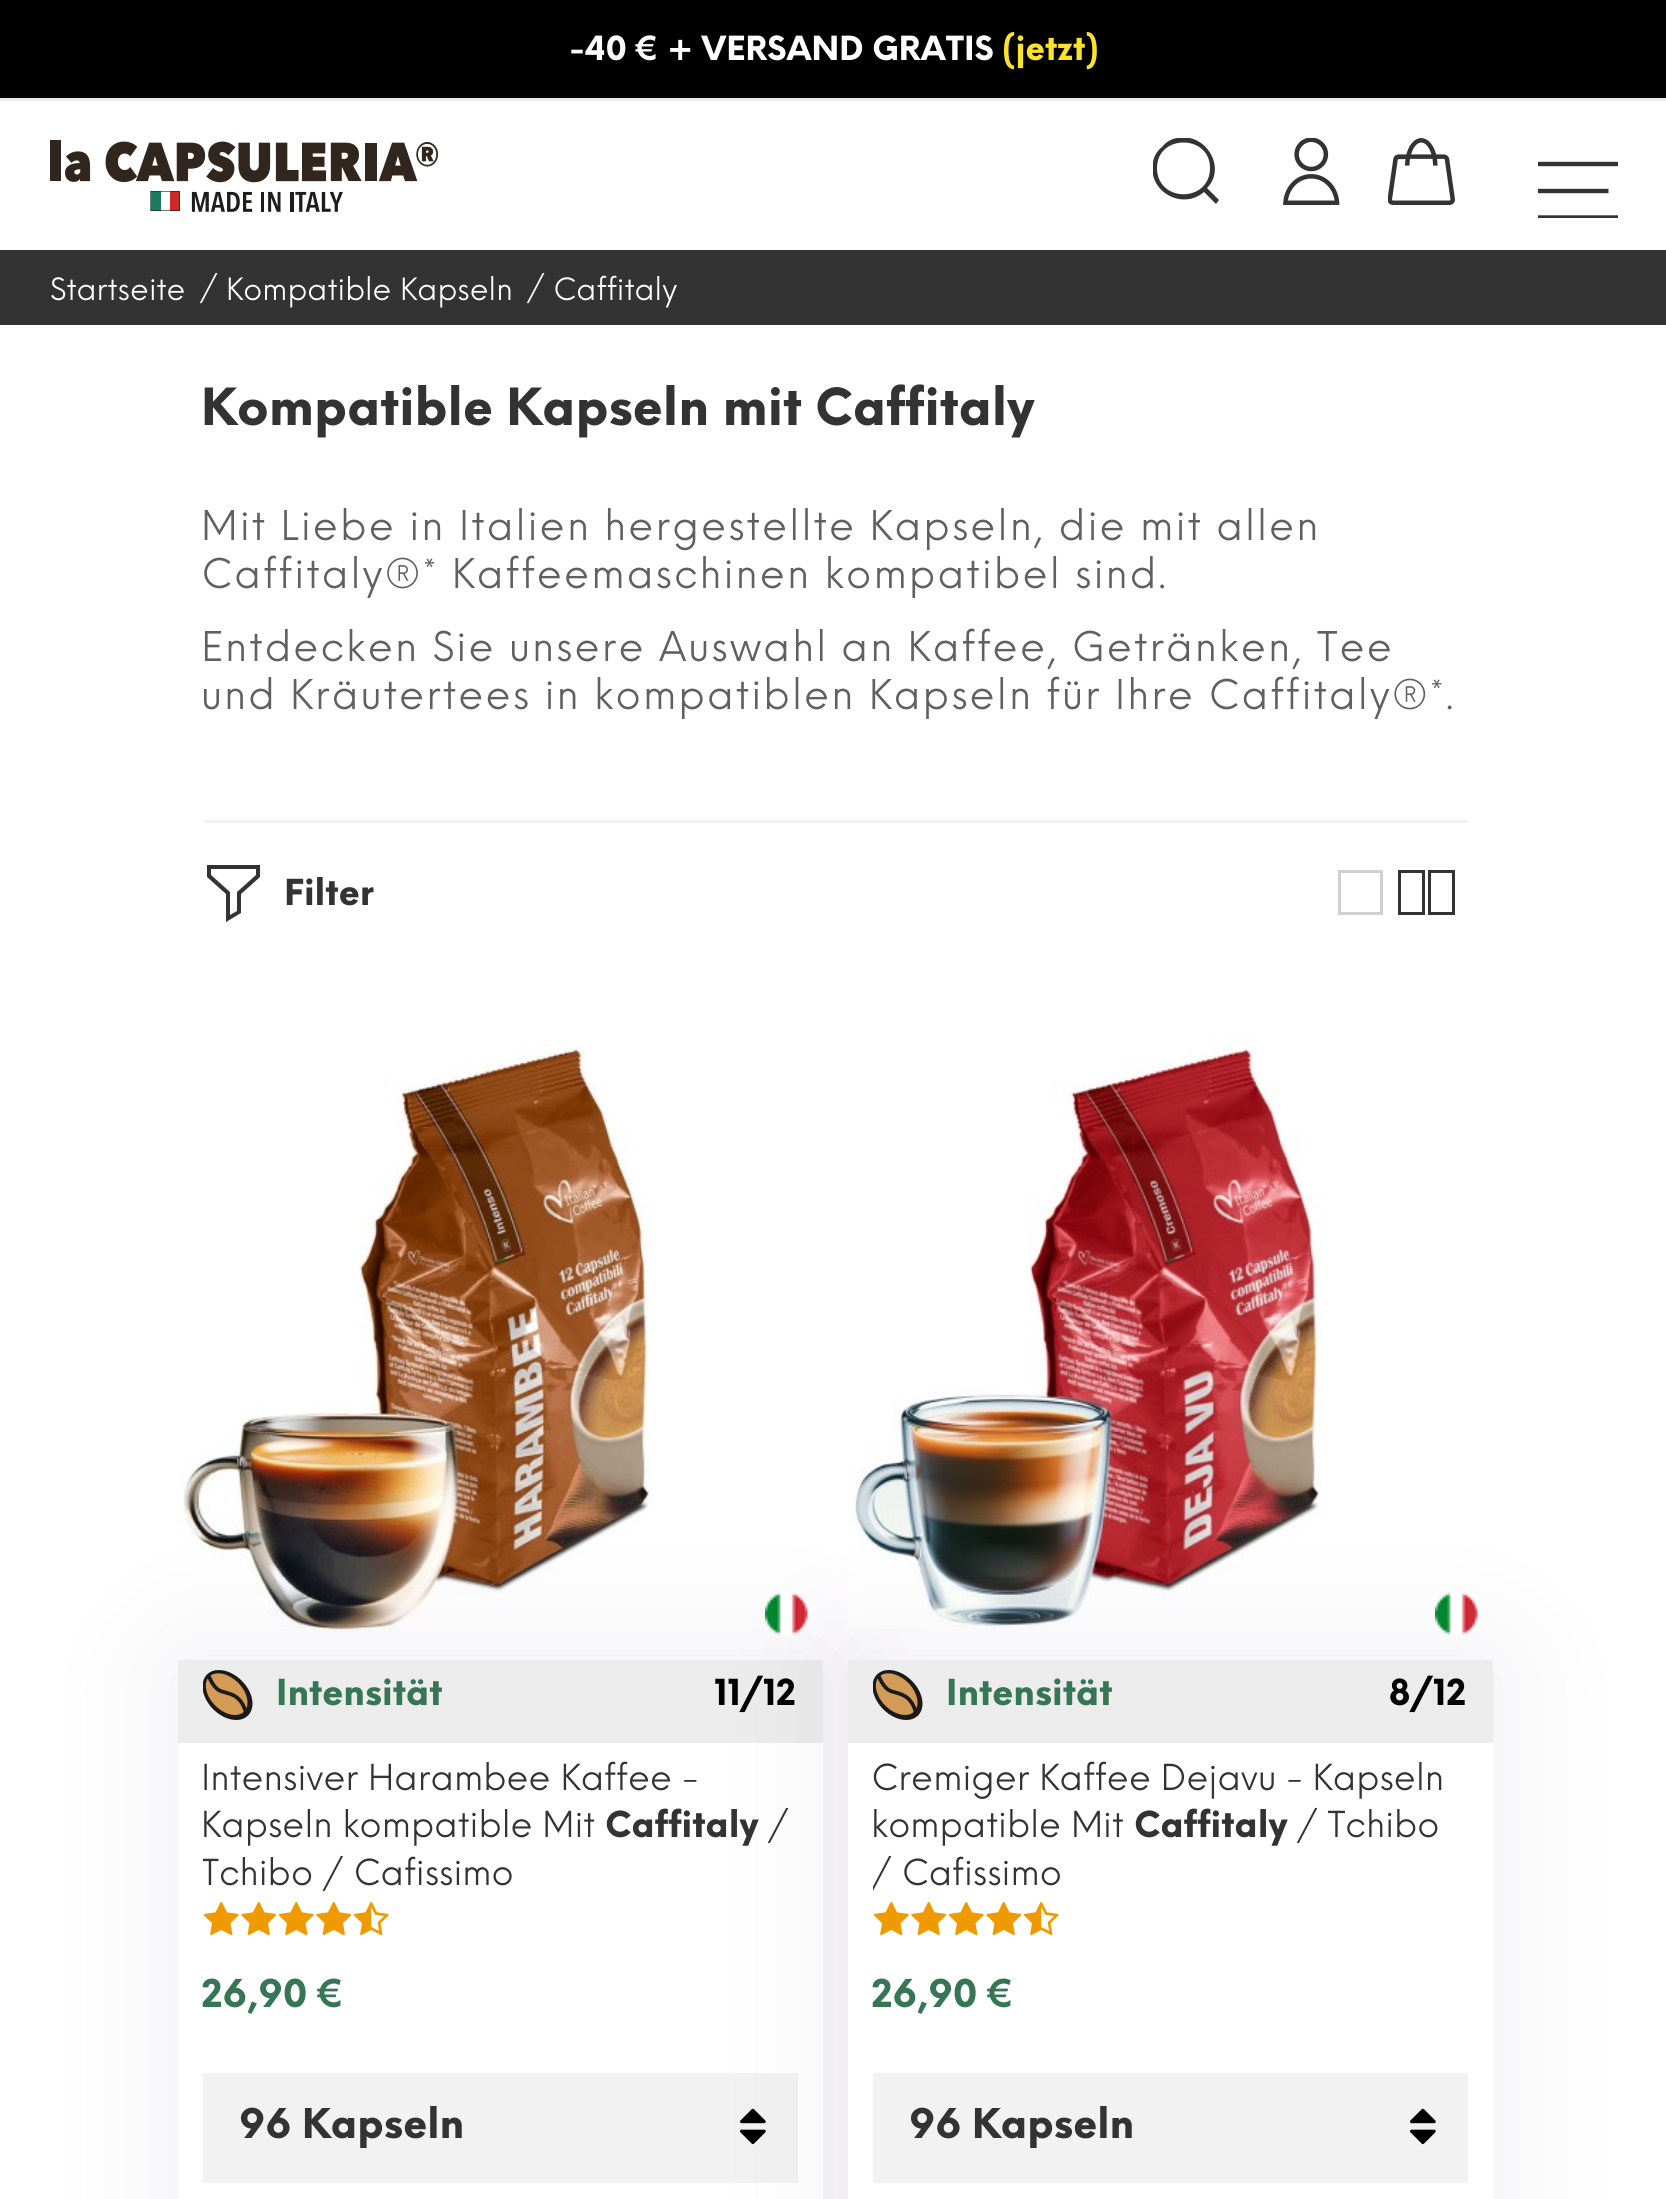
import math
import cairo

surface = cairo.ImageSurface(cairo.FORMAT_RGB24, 1666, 2199)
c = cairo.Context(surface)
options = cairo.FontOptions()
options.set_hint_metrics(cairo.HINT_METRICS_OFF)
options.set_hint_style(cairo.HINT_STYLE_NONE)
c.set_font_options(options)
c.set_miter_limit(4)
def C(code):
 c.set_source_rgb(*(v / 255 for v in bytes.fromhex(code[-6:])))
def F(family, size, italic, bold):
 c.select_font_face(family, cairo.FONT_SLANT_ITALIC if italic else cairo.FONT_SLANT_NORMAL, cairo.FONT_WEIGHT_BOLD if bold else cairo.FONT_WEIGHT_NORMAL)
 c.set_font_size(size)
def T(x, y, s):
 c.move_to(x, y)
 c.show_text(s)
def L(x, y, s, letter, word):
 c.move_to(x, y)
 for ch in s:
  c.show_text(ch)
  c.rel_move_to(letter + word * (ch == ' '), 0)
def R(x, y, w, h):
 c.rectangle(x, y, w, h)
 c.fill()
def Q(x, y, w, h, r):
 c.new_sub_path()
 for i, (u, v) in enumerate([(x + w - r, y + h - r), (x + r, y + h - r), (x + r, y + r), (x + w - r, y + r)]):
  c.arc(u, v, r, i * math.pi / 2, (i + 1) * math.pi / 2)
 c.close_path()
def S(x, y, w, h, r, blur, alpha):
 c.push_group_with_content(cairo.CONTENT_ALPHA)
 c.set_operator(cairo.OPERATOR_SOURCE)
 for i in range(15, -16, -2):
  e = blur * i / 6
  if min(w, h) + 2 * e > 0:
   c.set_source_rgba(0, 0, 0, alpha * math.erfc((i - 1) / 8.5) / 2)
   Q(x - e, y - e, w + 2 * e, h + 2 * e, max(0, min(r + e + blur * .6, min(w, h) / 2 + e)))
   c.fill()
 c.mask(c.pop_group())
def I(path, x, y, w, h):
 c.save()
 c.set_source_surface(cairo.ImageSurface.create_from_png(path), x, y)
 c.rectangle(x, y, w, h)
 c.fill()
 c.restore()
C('ffffff')
c.paint()
C('000000')
R(0,0,1666,98)
C('ebebeb')
R(0,98,1666,3)
F('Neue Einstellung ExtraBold',32.5,0,0)
C('ffffff')
T(569,60,'-40 € + VERSAND GRATIS')
C('fbe329')
T(1002,60,'(jetzt)')
I('1.png',50,140,388,72)
c.save()
c.rectangle(1153,138,67,67)
c.clip()
C('333333')
c.new_path()
c.move_to(1219,200)
c.line_to(1207,188)
c.curve_to(1227,168,1206,132,1177,138)
c.curve_to(1171,139,1166,142,1162,147)
c.curve_to(1157,151,1154,156,1153,162)
c.curve_to(1147,191,1182,211,1204,192)
c.line_to(1216,204)
c.close_path()
c.move_to(1157,168)
c.curve_to(1157,134,1210,134,1210,168)
c.curve_to(1210,203,1157,203,1157,168)
c.close_path()
c.fill()
c.restore()
I('2.png',1283,138,57,67)
I('3.png',1388,138,67,67)
c.save()
c.rectangle(1538,138,80,80)
c.clip()
c.new_path()
c.move_to(1537.5,164)
c.line_to(1644,164)
c.move_to(1537.5,191)
c.line_to(1608.5,191)
c.move_to(1537.5,217.5)
c.line_to(1644,217.5)
C('333333')
c.set_line_width(4.4)
c.stroke()
c.restore()
C('333333')
R(0,250,1666,75)
F('Neue Einstellung',30,0,0)
C('ffffff')
T(50,300,'Startseite')
T(200,298,'/')
T(226,300,'Kompatible Kapseln')
T(527,298,'/')
T(553,300,'Caffitaly')
C('f2f2f2')
R(203,820,1265,3)
F('Neue Einstellung ExtraBold',50,0,0)
C('333333')
T(201,425,'Kompatible Kapseln mit Caffitaly')
F('Neue Einstellung',40,0,0)
C('606060')
L(201,540,'Mit Liebe in Italien hergestellte Kapseln, die mit allen',2,0)
L(201,588,'Caffitaly®* Kaffeemaschinen kompatibel sind.',2,0)
L(201,661,'Entdecken Sie unsere Auswahl an Kaffee, Getränken, Tee',2,0)
L(201,709,'und Kräutertees in kompatiblen Kapseln für Ihre Caffitaly®*.',2,0)
C('333333')
c.new_path()
c.move_to(226,922)
c.line_to(226,894)
c.line_to(207,877)
c.line_to(207,865)
c.line_to(260,865)
c.line_to(260,877)
c.line_to(241,894)
c.line_to(241,913)
c.close_path()
c.move_to(211,875)
c.line_to(230,892)
c.line_to(230,915)
c.line_to(237,911)
c.line_to(237,892)
c.line_to(256,875)
c.line_to(256,869)
c.line_to(211,869)
c.close_path()
c.fill()
F('Neue Einstellung ExtraBold',35,0,0)
T(284,905,'Filter')
c.rectangle(1339.5,871.5,42,42)
C('d0d0d0')
c.set_line_width(3)
c.stroke()
c.rectangle(1399.5,871.5,24,42)
C('333333')
c.stroke()
c.rectangle(1429.5,871.5,24,42)
c.stroke()
I('4.png',178,1041,476,592)
C('523f69')
S(178,1660,645,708,0,62.5,.1)
C('ffffff')
R(178,1743,645,456)
C('ececec')
R(178,1660,645,83)
C('f2f2f2')
R(203,2073,595,110)
I('11.png',848,1038,476,590)
C('523f69')
S(848,1660,645,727,0,62.5,.1)
I('5.png',765,1592,43,43)
I('6.png',203,1670,50,50)
C('377654')
T(276,1705,'Intensität')
C('000000')
T(714,1705,'11/12')
F('Neue Einstellung',35,0,0)
C('333333')
T(201,1790,'Intensiver Harambee Kaffee -')
T(201,1837,'Kapseln kompatible Mit')
F('Neue Einstellung ExtraBold',35,0,0)
T(605,1837,'Caffitaly')
F('Neue Einstellung',35,0,0)
T(768,1837,'/')
c.save()
c.rectangle(203,1755,595,153)
c.clip()
T(201,1885,'Tchibo / Cafissimo')
c.restore()
I('7.png',203,1902,36,34)
I('8.png',241,1902,36,34)
I('7.png',278,1902,36,34)
I('8.png',316,1902,36,34)
I('9.png',353,1902,36,34)
F('Neue Einstellung ExtraBold',37.5,0,0)
C('377654')
T(201,2007,'26,90 €')
F('Neue Einstellung ExtraBold',40,0,0)
C('333333')
T(239,2138,'96 Kapseln')
I('10.png',740,2108,26,37)
I('12.png',1435,1592,43,43)
C('ffffff')
R(848,1743,645,456)
C('ececec')
R(848,1660,645,83)
I('6.png',873,1670,50,50)
F('Neue Einstellung ExtraBold',35,0,0)
C('377654')
T(946,1705,'Intensität')
C('000000')
T(1389,1705,'8/12')
F('Neue Einstellung',35,0,0)
C('333333')
T(871,1790,'Cremiger Kaffee Dejavu - Kapseln')
T(871,1837,'kompatible Mit')
F('Neue Einstellung ExtraBold',35,0,0)
T(1134,1837,'Caffitaly')
F('Neue Einstellung',35,0,0)
T(1297,1837,'/ Tchibo')
c.save()
c.rectangle(873,1755,595,153)
c.clip()
T(871,1885,'/ Cafissimo')
c.restore()
I('7.png',873,1902,36,34)
I('8.png',911,1902,36,34)
I('7.png',948,1902,36,34)
I('8.png',986,1902,36,34)
I('9.png',1023,1902,36,34)
F('Neue Einstellung ExtraBold',37.5,0,0)
C('377654')
T(871,2007,'26,90 €')
C('f2f2f2')
R(873,2073,595,110)
F('Neue Einstellung ExtraBold',40,0,0)
C('333333')
T(909,2138,'96 Kapseln')
I('13.png',1410,2108,26,37)
surface.write_to_png('o.png')
